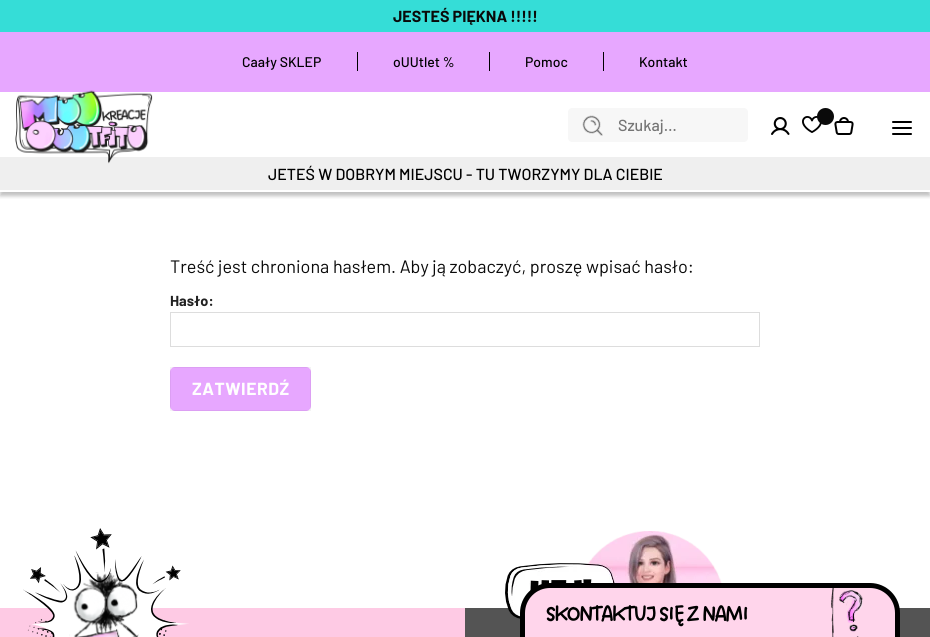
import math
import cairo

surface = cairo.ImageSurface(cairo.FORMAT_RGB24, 930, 637)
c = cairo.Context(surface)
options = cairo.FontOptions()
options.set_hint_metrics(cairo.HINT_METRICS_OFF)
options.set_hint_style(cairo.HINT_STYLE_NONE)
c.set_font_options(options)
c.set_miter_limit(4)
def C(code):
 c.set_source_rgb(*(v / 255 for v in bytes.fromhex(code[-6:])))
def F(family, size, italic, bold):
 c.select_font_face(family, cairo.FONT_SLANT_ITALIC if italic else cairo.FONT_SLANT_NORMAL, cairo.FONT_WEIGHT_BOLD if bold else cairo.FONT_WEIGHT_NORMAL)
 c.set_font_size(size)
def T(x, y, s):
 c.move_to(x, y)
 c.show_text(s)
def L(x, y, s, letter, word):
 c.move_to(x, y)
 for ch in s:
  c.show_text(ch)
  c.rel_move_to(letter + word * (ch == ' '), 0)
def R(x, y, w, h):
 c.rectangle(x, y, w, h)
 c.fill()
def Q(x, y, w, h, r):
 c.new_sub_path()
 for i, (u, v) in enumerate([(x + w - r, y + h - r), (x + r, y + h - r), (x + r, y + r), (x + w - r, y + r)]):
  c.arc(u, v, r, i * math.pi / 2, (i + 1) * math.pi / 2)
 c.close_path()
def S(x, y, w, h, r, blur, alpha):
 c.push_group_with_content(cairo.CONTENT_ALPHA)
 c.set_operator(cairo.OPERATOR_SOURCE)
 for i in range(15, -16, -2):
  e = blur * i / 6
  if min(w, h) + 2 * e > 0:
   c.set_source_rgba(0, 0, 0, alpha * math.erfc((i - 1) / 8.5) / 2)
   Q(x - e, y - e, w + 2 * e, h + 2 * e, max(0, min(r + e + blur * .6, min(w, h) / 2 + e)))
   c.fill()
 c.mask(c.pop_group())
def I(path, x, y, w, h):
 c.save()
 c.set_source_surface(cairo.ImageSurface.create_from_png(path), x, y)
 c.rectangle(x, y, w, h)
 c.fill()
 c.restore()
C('ffffff')
c.paint()
c.save()
c.rectangle(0,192,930,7)
c.clip()
C('000000')
S(0,4,930,192,0,2,.25)
c.restore()
C('35ddd7')
R(0,0,930,32)
F('Barlow',16,0,1)
C('0a0a0a')
T(393,22,'JESTEŚ PIĘKNA !!!!!')
C('e7a7ff')
R(0,32,930,60)
C('000000')
R(357,52,1,19)
F('Barlow Medium',14,0,0)
T(242,67,'Caały SKLEP')
R(489,52,1,19)
T(393,67,'oUUtlet %')
R(603,52,1,19)
T(525,67,'Pomoc')
T(639,67,'Kontakt')
C('efefef')
R(0,157,930,33)
I('1.png',15,90,138,74)
C('f7f7f7')
Q(568,108,180,34,4)
c.fill()
I('2.png',582,115,21,21)
F('Barlow Medium',16,0,0)
C('757575')
T(618,131,'Szukaj…')
I('3.png',771,117,19,18)
I('4.png',802,116,20,17)
C('0a0a0a')
c.arc(825.5,116.5,8.5,0,2 * math.pi)
c.fill()
I('5.png',834,117,20,18)
I('6.png',892,121,20,14)
C('000000')
T(268,180,'JETEŚ W DOBRYM MIEJSCU - TU TWORZYMY DLA CIEBIE')
F('Barlow',18,0,0)
C('0a0a0a')
T(170,273,'Treść jest chroniona hasłem. Aby ją zobaczyć, proszę wpisać hasło:')
F('Barlow',14.5,0,1)
C('222222')
T(170,306,'Hasło:')
c.rectangle(170.5,312.5,589,34)
C('dddddd')
c.set_line_width(1)
c.stroke()
C('e7a7ff')
Q(170,367,141,44,5)
c.fill()
c.rectangle(170.5,367.5,140,43)
c.set_source_rgba(0,0,0,0.05)
c.stroke()
F('Barlow',17.5,0,1)
C('ffffff')
L(192,395,'ZATWIERDŹ',.5,0)
C('fecae4')
R(0,608,465,29)
C('545454')
R(465,608,465,29)
I('7.png',23,528,166,109)
I('8.png',505,531,217,89)
C('ffd5eb')
Q(522.5,585.5,375,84,27.5)
c.fill_preserve()
C('000000')
c.set_line_width(5)
c.stroke()
F('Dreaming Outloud',24,0,1)
L(545,621,'SKONTAKTUJ SIĘ Z NAMI',-2.9,0)
I('9.png',831,588,32,49)
surface.write_to_png('o.png')
